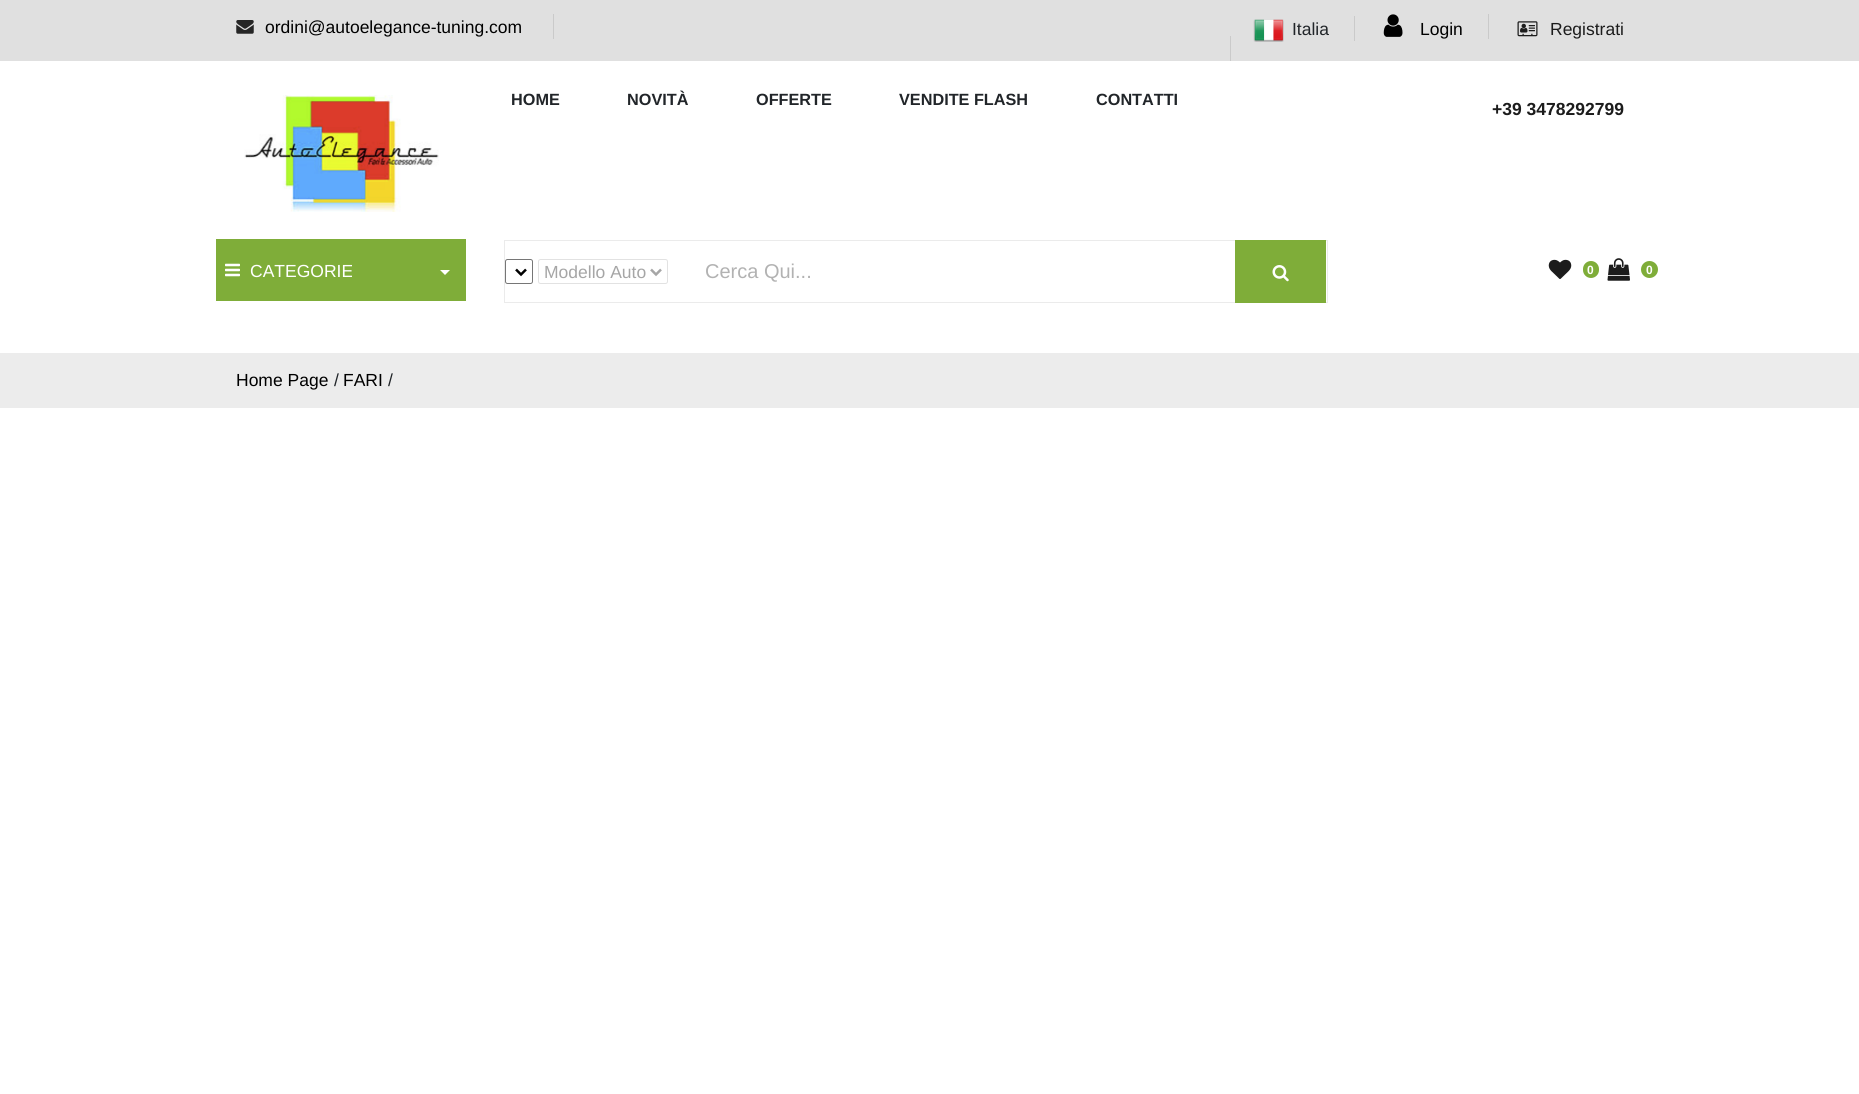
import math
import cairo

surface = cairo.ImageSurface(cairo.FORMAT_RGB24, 1859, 1094)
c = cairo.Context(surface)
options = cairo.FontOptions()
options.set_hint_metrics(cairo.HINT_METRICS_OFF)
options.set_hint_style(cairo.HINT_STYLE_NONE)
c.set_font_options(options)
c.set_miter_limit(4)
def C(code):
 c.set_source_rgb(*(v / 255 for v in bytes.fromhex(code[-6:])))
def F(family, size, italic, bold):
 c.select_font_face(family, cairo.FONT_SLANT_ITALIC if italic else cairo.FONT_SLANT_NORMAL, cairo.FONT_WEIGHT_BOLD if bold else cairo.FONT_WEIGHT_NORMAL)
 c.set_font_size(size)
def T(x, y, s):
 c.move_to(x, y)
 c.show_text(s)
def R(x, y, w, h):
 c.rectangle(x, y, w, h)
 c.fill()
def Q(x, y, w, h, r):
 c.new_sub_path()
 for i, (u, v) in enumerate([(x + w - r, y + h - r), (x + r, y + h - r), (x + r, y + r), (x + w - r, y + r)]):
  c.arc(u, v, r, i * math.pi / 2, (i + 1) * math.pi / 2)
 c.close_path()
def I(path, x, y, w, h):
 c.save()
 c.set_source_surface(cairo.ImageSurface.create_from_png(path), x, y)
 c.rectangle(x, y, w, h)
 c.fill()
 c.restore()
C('ffffff')
c.paint()
C('e0e0e0')
R(0,0,1859,61)
I('1.png',236,20,18,14)
F('Liberation Sans',17.5,0,0)
C('000000')
T(265,33,'ordini@autoelegance-tuning.com')
C('cacaca')
R(553,14,1,25)
I('2.png',1253,19,31,23)
C('212529')
T(1292,35,'Italia')
C('cacaca')
R(1354,16,1,25)
I('3.png',1383,14,20,23)
C('000000')
T(1420,35,'Login')
C('cacaca')
R(1488,14,1,25)
I('4.png',1517,21,21,16)
C('1c1c1c')
T(1550,35,'Registrati')
C('cacaca')
R(1230,36,1,25)
I('5.png',244,95,195,117)
F('Liberation Sans',16.25,0,1)
C('212529')
T(511,105,'HOME')
T(627,105,'NOVITÀ')
T(756,105,'OFFERTE')
T(899,105,'VENDITE FLASH')
T(1096,105,'CONTATTI')
F('Liberation Sans',17.5,0,1)
C('1c1c1c')
T(1492,115,'+39 3478292799')
C('7fad39')
R(216,239,250,62)
I('6.png',225,263,15,14)
F('Liberation Sans',17.5,0,0)
C('ffffff')
T(250,277,'CATEGORIE')
c.new_path()
c.move_to(440,270)
c.line_to(450,270)
c.line_to(445,275)
c.close_path()
c.fill()
c.rectangle(504.5,240.5,823,62)
C('ebebeb')
c.set_line_width(1)
c.stroke()
Q(505.5,259.5,27,24,2)
C('767676')
c.stroke()
c.new_path()
c.move_to(516,269.5)
c.line_to(521,274.5)
c.line_to(526,269.5)
C('000000')
c.set_line_width(2.5)
c.stroke()
Q(538.5,259.5,129,24,2)
C('e2e2e2')
c.set_line_width(1)
c.stroke()
c.new_path()
c.move_to(651,269.5)
c.line_to(656,274.5)
c.line_to(661,269.5)
C('a6a6a6')
c.set_line_width(2.5)
c.stroke()
T(544,278,'Modello Auto')
F('Liberation Sans',20,0,0)
C('b2b2b2')
T(705,278,'Cerca Qui...')
C('7fad39')
R(1235,240,91,63)
I('7.png',1272,265,17,17)
I('8.png',1548,259,24,20)
Q(1583,261,16,17,8)
c.fill()
F('Liberation Sans',12,0,1)
C('ffffff')
T(1587,274,'0')
I('9.png',1607,258,23,23)
C('7fad39')
c.arc(1649.5,269.5,8.5,0,2 * math.pi)
c.fill()
C('ffffff')
T(1646,274,'0')
C('ececec')
R(0,353,1859,55)
F('Liberation Sans',17.5,0,0)
C('000000')
T(236,386,'Home Page')
C('212529')
T(334,386,'/')
C('000000')
T(343,386,'FARI')
C('212529')
T(388,386,'/')
surface.write_to_png('o.png')
